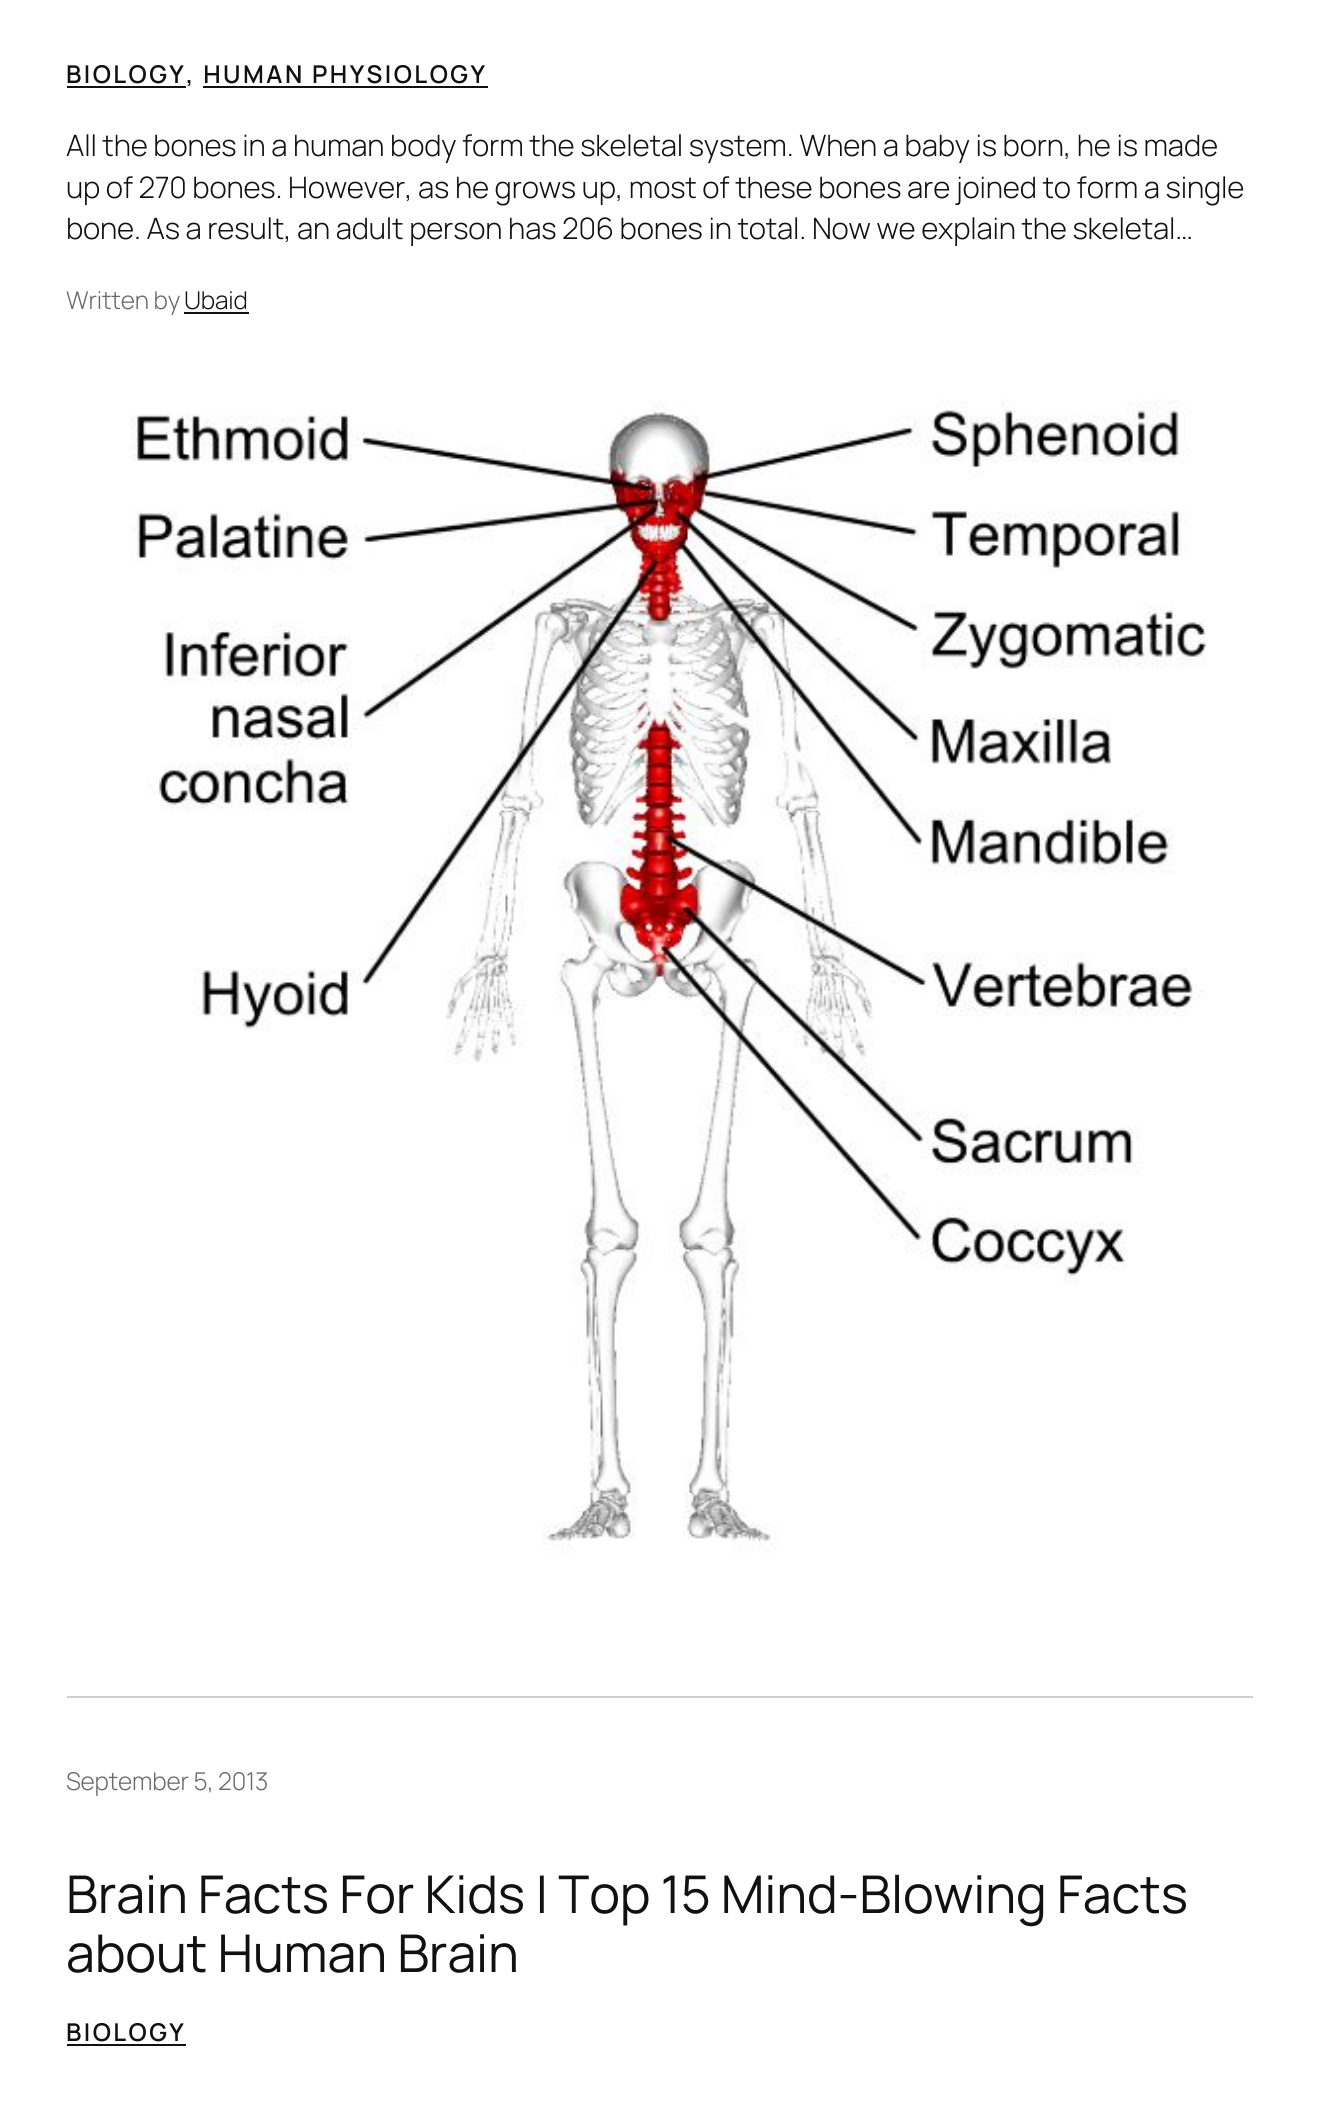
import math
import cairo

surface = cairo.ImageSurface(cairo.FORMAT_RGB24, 1318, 2103)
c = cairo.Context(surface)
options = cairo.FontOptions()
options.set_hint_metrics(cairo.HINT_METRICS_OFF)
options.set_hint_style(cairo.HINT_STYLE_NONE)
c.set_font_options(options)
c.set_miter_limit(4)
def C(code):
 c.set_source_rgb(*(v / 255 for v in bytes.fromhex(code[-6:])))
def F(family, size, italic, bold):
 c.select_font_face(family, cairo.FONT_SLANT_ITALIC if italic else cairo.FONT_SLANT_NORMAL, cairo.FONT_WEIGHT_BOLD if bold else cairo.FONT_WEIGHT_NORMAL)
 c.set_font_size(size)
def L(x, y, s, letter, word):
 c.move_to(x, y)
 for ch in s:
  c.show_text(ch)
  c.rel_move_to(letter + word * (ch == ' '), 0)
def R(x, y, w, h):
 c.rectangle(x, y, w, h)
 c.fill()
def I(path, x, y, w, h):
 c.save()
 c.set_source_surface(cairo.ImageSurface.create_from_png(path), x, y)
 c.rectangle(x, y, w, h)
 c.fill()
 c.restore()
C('ffffff')
c.paint()
F('Manrope SemiBold',24.5,0,0)
C('111111')
L(66,83,'BIOLOGY, HUMAN PHYSIOLOGY',2.45,0)
R(67,86,119,2)
R(203,86,285,2)
F('Manrope Light',29.5,0,0)
L(66,156,'All the bones in a human body form the skeletal system. When a baby is born, he is made',-.18,0)
L(66,198,'up of 270 bones. However, as he grows up, most of these bones are joined to form a single',-.18,0)
L(66,239,'bone. As a result, an adult person has 206 bones in total. Now we explain the skeletal…',-.18,0)
F('Manrope Light',24.5,0,0)
C('686868')
L(66,309,'Written by',-.18,0)
C('111111')
L(184,309,'Ubaid',-.18,0)
R(184,312,65,2)
I('1.png',130,399,1077,1155)
C('cfcfcf')
R(67,1696,1186,2)
C('686868')
L(66,1790,'September 5, 2013',-.18,0)
F('Manrope',52,0,0)
C('111111')
L(66,1913,'Brain Facts For Kids | Top 15 Mind-Blowing Facts',-.18,0)
L(66,1972,'about Human Brain',-.18,0)
F('Manrope SemiBold',24.5,0,0)
L(66,2041,'BIOLOGY',2.45,0)
R(67,2044,119,2)
surface.write_to_png('o.png')
